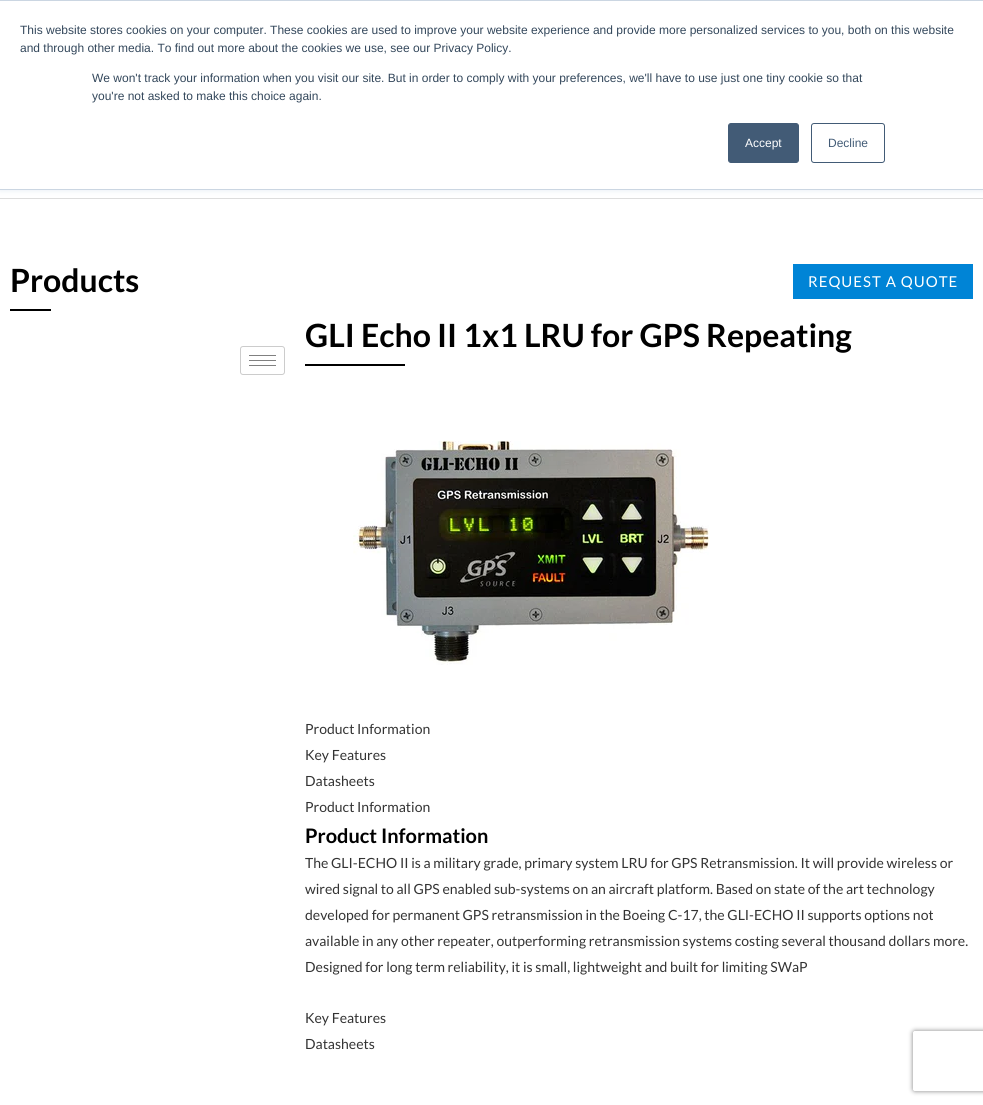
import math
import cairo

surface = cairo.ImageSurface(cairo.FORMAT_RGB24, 983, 1105)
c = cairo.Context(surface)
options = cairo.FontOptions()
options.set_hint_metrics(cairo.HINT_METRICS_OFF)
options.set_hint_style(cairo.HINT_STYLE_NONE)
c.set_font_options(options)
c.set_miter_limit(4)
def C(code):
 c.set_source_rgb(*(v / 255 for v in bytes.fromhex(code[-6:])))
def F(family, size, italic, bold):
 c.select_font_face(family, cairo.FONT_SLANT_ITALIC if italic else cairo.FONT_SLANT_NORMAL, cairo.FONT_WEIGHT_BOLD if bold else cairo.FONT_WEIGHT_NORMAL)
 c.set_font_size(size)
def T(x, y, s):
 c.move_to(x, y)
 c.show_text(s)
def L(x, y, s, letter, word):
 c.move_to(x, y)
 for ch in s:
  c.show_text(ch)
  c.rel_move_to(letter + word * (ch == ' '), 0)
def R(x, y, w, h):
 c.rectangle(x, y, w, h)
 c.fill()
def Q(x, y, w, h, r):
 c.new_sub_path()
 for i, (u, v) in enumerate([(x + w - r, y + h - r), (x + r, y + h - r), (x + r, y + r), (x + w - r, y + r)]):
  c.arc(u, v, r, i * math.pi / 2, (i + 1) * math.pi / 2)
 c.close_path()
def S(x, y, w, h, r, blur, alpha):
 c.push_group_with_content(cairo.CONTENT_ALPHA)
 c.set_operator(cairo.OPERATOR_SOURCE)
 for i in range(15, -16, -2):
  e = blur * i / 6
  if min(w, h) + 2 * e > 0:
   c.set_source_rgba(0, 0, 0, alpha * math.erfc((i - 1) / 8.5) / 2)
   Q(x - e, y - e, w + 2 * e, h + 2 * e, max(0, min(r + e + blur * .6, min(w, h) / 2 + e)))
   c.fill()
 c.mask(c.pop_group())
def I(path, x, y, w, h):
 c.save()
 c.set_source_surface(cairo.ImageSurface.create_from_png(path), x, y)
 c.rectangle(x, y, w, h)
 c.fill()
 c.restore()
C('ffffff')
c.paint()
C('dddddd')
R(0,198,983,1)
C('eaf0f6')
S(0,1,983,190,0,2.5,1)
C('ffffff')
R(0,1,983,188)
C('cbd6e2')
R(0,0,983,1)
R(0,189,983,1)
F('Liberation Sans',12,0,0)
C('33475b')
T(20,34,'This website stores cookies on your computer. These cookies are used to improve your website experience and provide more personalized services to you, both on this website')
T(20,52,'and through other media. To find out more about the cookies we use, see our Privacy Policy.')
T(92,82,'We won\'t track your information when you visit our site. But in order to comply with your preferences, we\'ll have to use just one tiny cookie so that')
T(92,100,'you\'re not asked to make this choice again.')
C('425b76')
Q(728.5,123.5,70,39,2.5)
c.fill_preserve()
c.set_line_width(1)
c.stroke()
C('ffffff')
T(745,147,'Accept')
Q(811.5,123.5,73,39,2.5)
C('425b76')
c.stroke()
T(828,147,'Decline')
F('Lato',32,0,1)
C('000000')
T(10,292,'Products')
R(10,309,41,2)
Q(240.5,346.5,44,28,2.5)
C('cccccc')
c.stroke()
C('808080')
R(249,355,27,1)
R(249,360,27,1)
R(249,365,27,1)
C('0084d6')
R(793,264,180,35)
F('Lato',15,0,0)
C('ffffff')
L(808,287,'REQUEST A QUOTE',1,0)
F('Lato',32,0,1)
C('000000')
T(305,347,'GLI Echo II 1x1 LRU for GPS Repeating')
R(305,364,100,2)
I('1.png',353,440,357,225)
F('Lato',14,0,0)
C('333333')
T(305,734,'Product Information')
T(305,760,'Key Features')
T(305,786,'Datasheets')
T(305,812,'Product Information')
F('Lato',20,0,1)
C('000000')
T(305,843,'Product Information')
F('Lato',14,0,0)
C('333333')
T(305,868,'The GLI-ECHO II is a military grade, primary system LRU for GPS Retransmission. It will provide wireless or')
T(305,894,'wired signal to all GPS enabled sub-systems on an aircraft platform. Based on state of the art technology')
T(305,920,'developed for permanent GPS retransmission in the Boeing C-17, the GLI-ECHO II supports options not')
T(305,946,'available in any other repeater, outperforming retransmission systems costing several thousand dollars more.')
T(305,972,'Designed for long term reliability, it is small, lightweight and built for limiting SWaP')
T(305,1023,'Key Features')
T(305,1049,'Datasheets')
c.save()
c.set_fill_rule(cairo.FILL_RULE_EVEN_ODD)
c.new_path()
c.move_to(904,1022)
c.line_to(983,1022)
c.line_to(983,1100)
c.line_to(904,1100)
c.close_path()
c.move_to(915,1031)
c.line_to(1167,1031)
c.curve_to(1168,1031,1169,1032,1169,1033)
c.line_to(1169,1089)
c.curve_to(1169,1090,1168,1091,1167,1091)
c.line_to(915,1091)
c.curve_to(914,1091,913,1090,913,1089)
c.line_to(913,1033)
c.curve_to(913,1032,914,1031,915,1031)
c.close_path()
c.clip()
C('808080')
S(913,1031,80,60,2,2.5,1)
c.restore()
surface.write_to_png('o.png')
